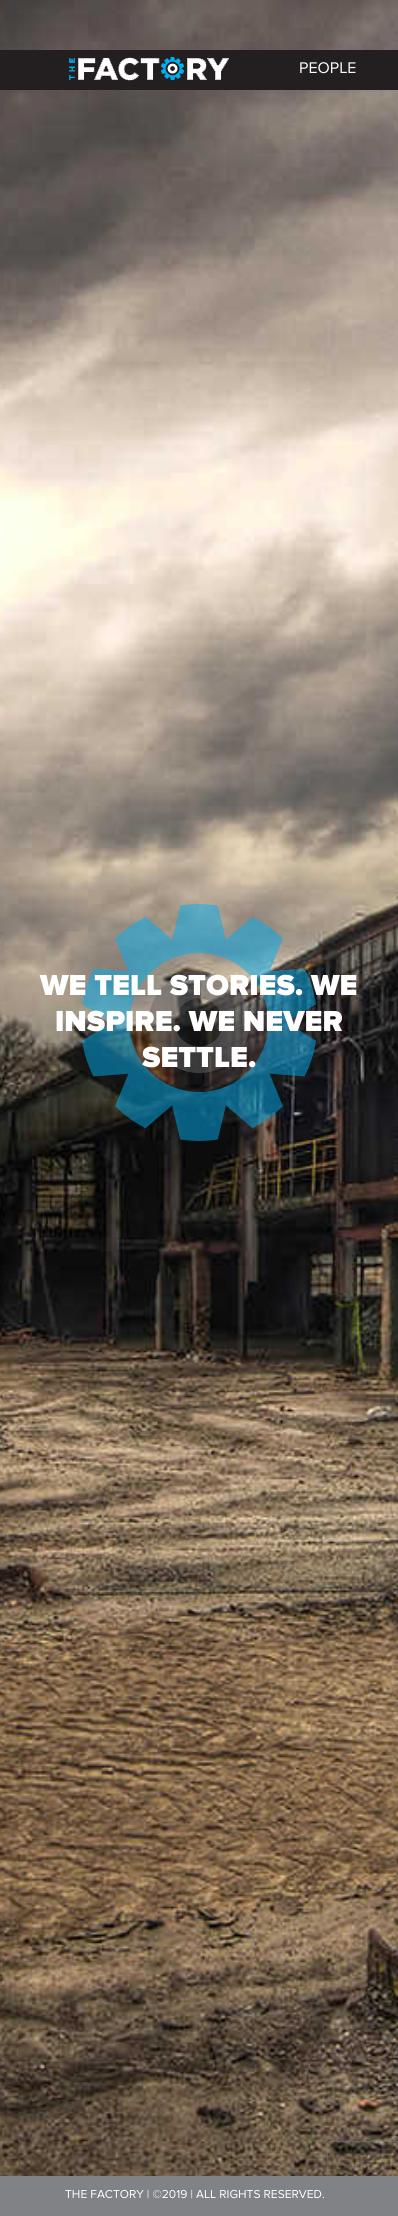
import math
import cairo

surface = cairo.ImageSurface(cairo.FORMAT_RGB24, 398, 2216)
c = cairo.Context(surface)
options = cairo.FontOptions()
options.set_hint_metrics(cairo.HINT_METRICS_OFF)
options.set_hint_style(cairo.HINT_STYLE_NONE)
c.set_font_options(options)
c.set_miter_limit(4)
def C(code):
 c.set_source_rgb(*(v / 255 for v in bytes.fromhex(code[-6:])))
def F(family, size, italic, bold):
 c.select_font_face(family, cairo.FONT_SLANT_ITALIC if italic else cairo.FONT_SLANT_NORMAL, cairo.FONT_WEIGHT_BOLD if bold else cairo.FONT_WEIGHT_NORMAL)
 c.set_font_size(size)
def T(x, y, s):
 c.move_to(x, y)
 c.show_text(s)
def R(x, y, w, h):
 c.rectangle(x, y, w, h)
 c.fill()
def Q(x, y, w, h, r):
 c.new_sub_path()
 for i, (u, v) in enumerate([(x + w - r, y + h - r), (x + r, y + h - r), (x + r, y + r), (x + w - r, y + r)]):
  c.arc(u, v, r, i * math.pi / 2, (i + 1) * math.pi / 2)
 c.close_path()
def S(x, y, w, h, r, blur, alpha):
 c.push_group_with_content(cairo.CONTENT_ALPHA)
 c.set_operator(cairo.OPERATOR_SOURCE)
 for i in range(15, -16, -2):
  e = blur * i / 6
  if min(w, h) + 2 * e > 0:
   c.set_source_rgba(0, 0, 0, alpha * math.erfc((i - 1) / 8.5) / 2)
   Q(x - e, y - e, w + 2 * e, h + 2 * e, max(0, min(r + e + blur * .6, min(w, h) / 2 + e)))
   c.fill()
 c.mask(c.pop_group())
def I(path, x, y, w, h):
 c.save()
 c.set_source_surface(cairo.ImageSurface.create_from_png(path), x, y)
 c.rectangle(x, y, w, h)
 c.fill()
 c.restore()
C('ffffff')
c.paint()
I('1.png',0,0,398,2176)
C('231f20')
R(0,50,398,40)
I('2.png',69,57,161,24)
I('3.png',161,57,23,23)
F('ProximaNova',16,0,0)
C('ffffff')
T(299,73,'PEOPLE')
C('818285')
R(0,2176,398,40)
c.save()
c.set_fill_rule(cairo.FILL_RULE_EVEN_ODD)
c.new_path()
c.move_to(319,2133)
c.line_to(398,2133)
c.line_to(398,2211)
c.line_to(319,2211)
c.close_path()
c.move_to(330,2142)
c.line_to(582,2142)
c.curve_to(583,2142,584,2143,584,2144)
c.line_to(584,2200)
c.curve_to(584,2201,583,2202,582,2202)
c.line_to(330,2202)
c.curve_to(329,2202,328,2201,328,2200)
c.line_to(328,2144)
c.curve_to(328,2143,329,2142,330,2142)
c.close_path()
c.clip()
C('808080')
S(328,2142,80,60,2,2.5,1)
c.restore()
I('4.png',82,904,234,237)
F('ProximaNova Black',30,0,0)
C('ffffff')
T(40,995,'WE TELL STORIES. WE')
T(55,1031,'INSPIRE. WE NEVER')
T(142,1067,'SETTLE.')
F('ProximaNova',12,0,0)
T(65,2198,'THE FACTORY | ©2019 | ALL RIGHTS RESERVED.')
surface.write_to_png('o.png')
